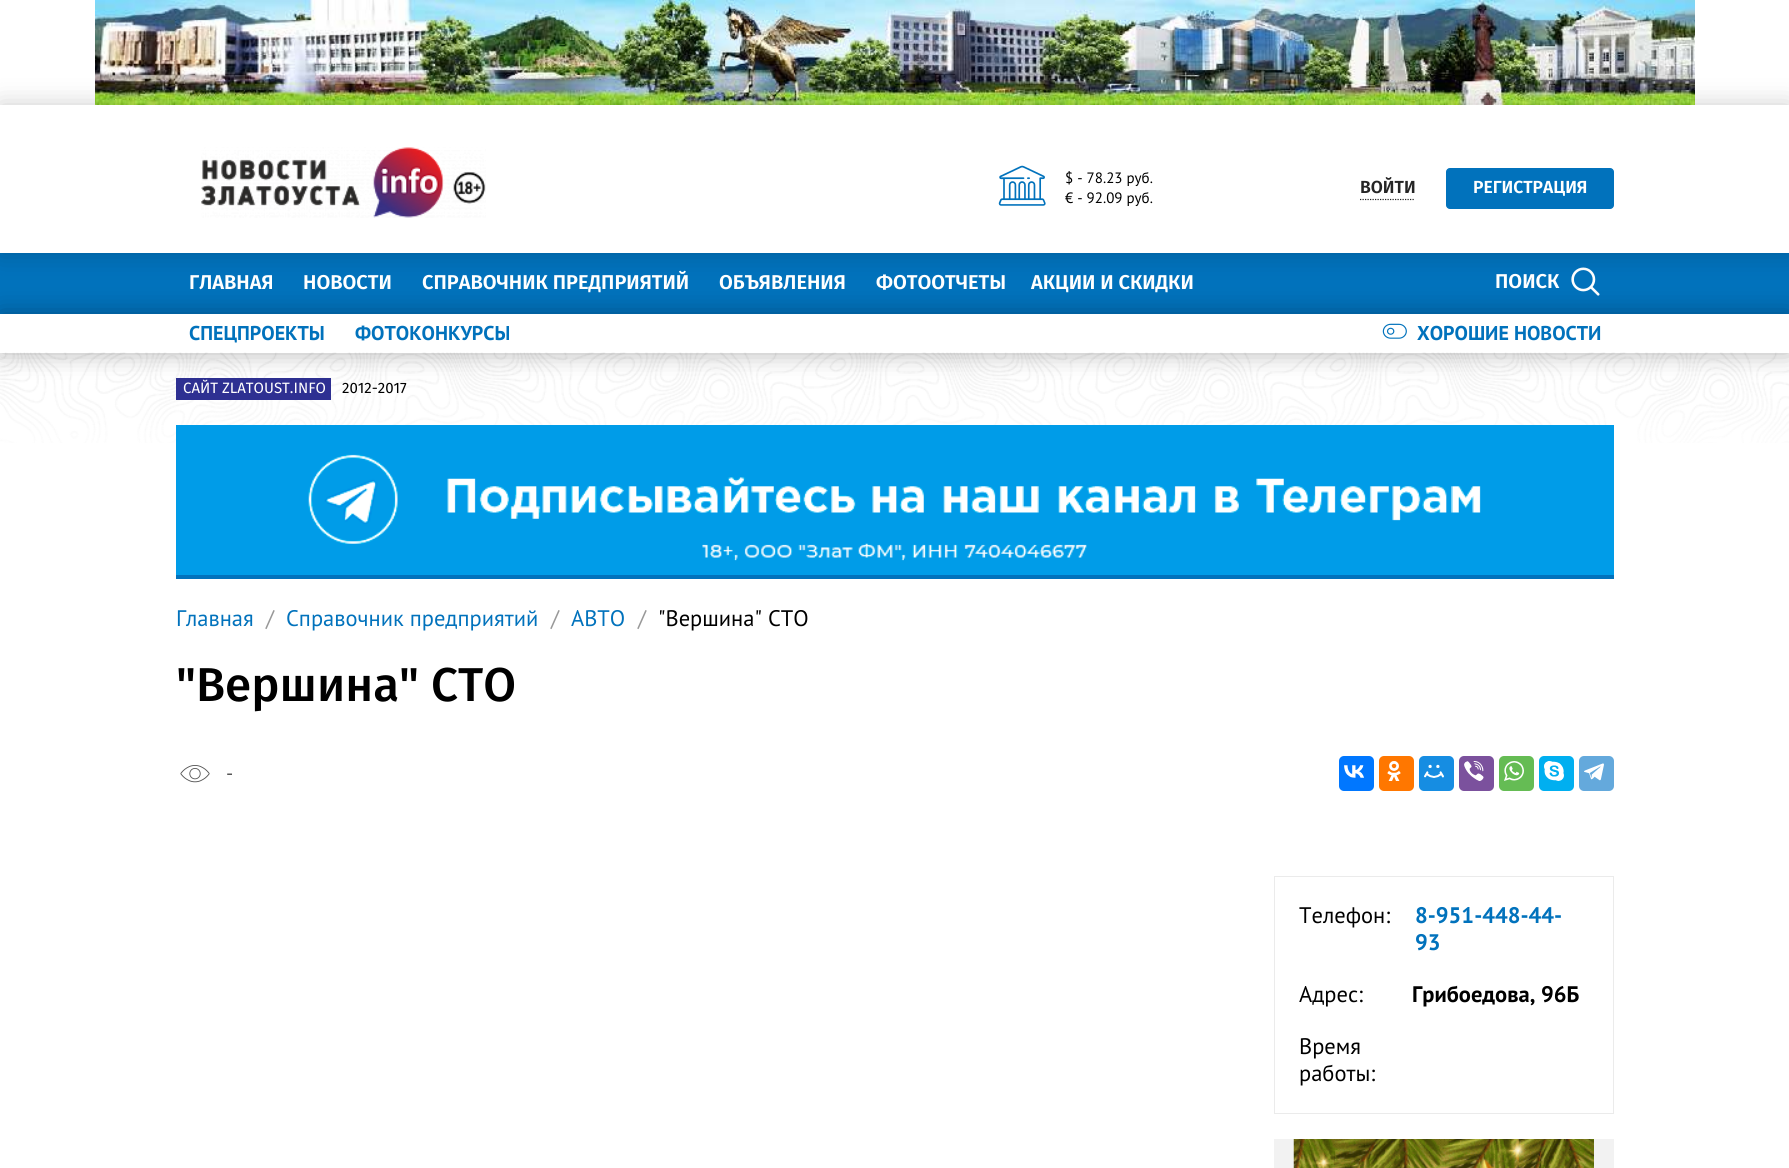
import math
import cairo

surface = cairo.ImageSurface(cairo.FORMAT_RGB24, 1789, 1168)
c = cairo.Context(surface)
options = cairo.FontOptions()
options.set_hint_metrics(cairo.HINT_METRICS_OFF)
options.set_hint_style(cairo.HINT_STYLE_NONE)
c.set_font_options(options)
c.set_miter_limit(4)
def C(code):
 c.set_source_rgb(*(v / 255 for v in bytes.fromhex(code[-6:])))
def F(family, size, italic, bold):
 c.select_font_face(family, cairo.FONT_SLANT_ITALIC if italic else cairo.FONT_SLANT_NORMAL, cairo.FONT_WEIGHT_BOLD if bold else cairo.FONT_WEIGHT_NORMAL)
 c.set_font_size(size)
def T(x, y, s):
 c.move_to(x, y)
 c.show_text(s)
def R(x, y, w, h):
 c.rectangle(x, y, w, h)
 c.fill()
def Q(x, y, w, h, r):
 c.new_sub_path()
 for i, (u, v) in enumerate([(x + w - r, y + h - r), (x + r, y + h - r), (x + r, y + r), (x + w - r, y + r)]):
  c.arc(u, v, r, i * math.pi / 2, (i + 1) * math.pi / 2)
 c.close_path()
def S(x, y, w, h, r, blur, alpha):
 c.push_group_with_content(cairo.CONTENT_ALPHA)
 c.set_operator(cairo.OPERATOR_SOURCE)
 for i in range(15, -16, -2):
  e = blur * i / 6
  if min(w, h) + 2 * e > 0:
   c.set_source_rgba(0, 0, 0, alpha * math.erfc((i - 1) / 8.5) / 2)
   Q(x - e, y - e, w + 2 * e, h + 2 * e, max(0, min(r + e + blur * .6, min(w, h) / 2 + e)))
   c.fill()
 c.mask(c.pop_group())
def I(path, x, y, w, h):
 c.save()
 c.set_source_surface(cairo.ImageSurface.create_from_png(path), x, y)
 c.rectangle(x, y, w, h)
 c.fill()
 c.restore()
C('ffffff')
c.paint()
I('1.png',95,0,1600,105)
C('0172bc')
R(0,253,1789,61)
I('4.png',1571,267,29,29)
c.save()
c.set_fill_rule(cairo.FILL_RULE_EVEN_ODD)
c.new_path()
c.move_to(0,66)
c.line_to(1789,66)
c.line_to(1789,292)
c.line_to(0,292)
c.close_path()
c.move_to(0,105)
c.line_to(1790,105)
c.line_to(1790,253)
c.line_to(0,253)
c.close_path()
c.clip()
C('000000')
S(0,105,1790,148,0,12.5,.2)
c.restore()
I('2.png',201,147,285,71)
I('3.png',998,165,48,41)
F('PT Sans',15,0,0)
C('000000')
T(1065,183,'$ - 78.23 руб.')
T(1065,203,'€ - 92.09 руб.')
F('Fira Sans SemiBold',17.5,0,0)
C('252525')
T(1360,193,'ВОЙТИ')
c.new_path()
c.move_to(1360,199.5)
c.line_to(1415,199.5)
c.set_line_width(1.2)
c.set_dash([1.25,1.25])
c.stroke()
C('0172bc')
Q(1446.5,168.5,167,40,3.5)
c.fill_preserve()
c.set_line_width(1)
c.set_dash([])
c.stroke()
C('ffffff')
T(1473,193,'РЕГИСТРАЦИЯ')
F('Fira Sans SemiBold',20,0,0)
T(189,289,'ГЛАВНАЯ')
T(303,289,'НОВОСТИ')
T(422,289,'СПРАВОЧНИК ПРЕДПРИЯТИЙ')
T(719,289,'ОБЪЯВЛЕНИЯ')
T(876,289,'ФОТООТЧЕТЫ')
T(1031,289,'АКЦИИ И СКИДКИ')
T(1495,288,'ПОИСК')
I('6.png',0,352,1789,91)
C('2e3092')
R(176,378,155,22)
c.save()
c.set_fill_rule(cairo.FILL_RULE_EVEN_ODD)
c.new_path()
c.move_to(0,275)
c.line_to(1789,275)
c.line_to(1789,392)
c.line_to(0,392)
c.close_path()
c.move_to(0,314)
c.line_to(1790,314)
c.line_to(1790,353)
c.line_to(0,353)
c.close_path()
c.clip()
C('000000')
S(0,314,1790,39,0,12.5,.3)
c.restore()
F('PT Sans',20,0,1)
C('0172bc')
T(189,340,'СПЕЦПРОЕКТЫ')
T(355,340,'ФОТОКОНКУРСЫ')
I('5.png',1382,323,25,16)
T(1417,340,'ХОРОШИЕ НОВОСТИ')
F('Fira Sans',15,0,0)
C('ffffff')
T(183,393,'САЙТ ZLATOUST.INFO')
C('000000')
T(342,393,'2012-2017')
C('0172bc')
R(176,575,1438,4)
I('7.png',176,425,1438,150)
F('PT Sans',22.5,0,0)
T(176,626,'Главная')
C('999999')
T(266,626,'/')
C('0172bc')
T(286,626,'Справочник предприятий')
C('999999')
T(551,626,'/')
C('0172bc')
T(571,626,'АВТО')
C('999999')
T(638,626,'/')
C('000000')
T(658,626,'"Вершина" СТО')
F('Fira Sans Medium',47.5,0,0)
T(176,701,'"Вершина" СТО')
I('8.png',180,765,30,18)
F('PT Sans',20,0,0)
C('555555')
T(226,780,'-')
C('0077ff')
Q(1339,756,35,35,5)
c.fill()
I('9.png',1344,765,20,13)
C('ff7700')
Q(1379,756,35,35,5)
c.fill()
I('10.png',1387,761,14,20)
C('168de2')
Q(1419,756,35,35,5)
c.fill()
I('11.png',1424,764,20,14)
C('7b519d')
Q(1459,756,35,35,5)
c.fill()
I('12.png',1464,761,20,20)
C('65bc54')
Q(1499,756,35,35,5)
c.fill()
I('13.png',1504,761,20,20)
C('00aff0')
Q(1539,756,35,35,5)
c.fill()
I('14.png',1544,761,20,20)
C('64a9dc')
Q(1579,756,35,35,5)
c.fill()
I('15.png',1584,763,20,18)
c.rectangle(1274.5,876.5,339,237)
C('ebebeb')
c.stroke()
F('PT Sans',22.5,0,0)
C('000000')
T(1299,923,'Телефон:')
F('PT Sans',22.5,0,1)
C('0172bc')
T(1415,923,'8-951-448-44-')
T(1415,950,'93')
F('PT Sans',22.5,0,0)
C('000000')
T(1299,1002,'Адрес:')
F('PT Sans',22.5,0,1)
T(1412,1002,'Грибоедова, 96Б')
F('PT Sans',22.5,0,0)
T(1299,1054,'Время')
T(1299,1081,'работы:')
C('f2f2f2')
R(1274,1139,340,29)
I('16.png',1293,1139,301,29)
surface.write_to_png('o.png')
